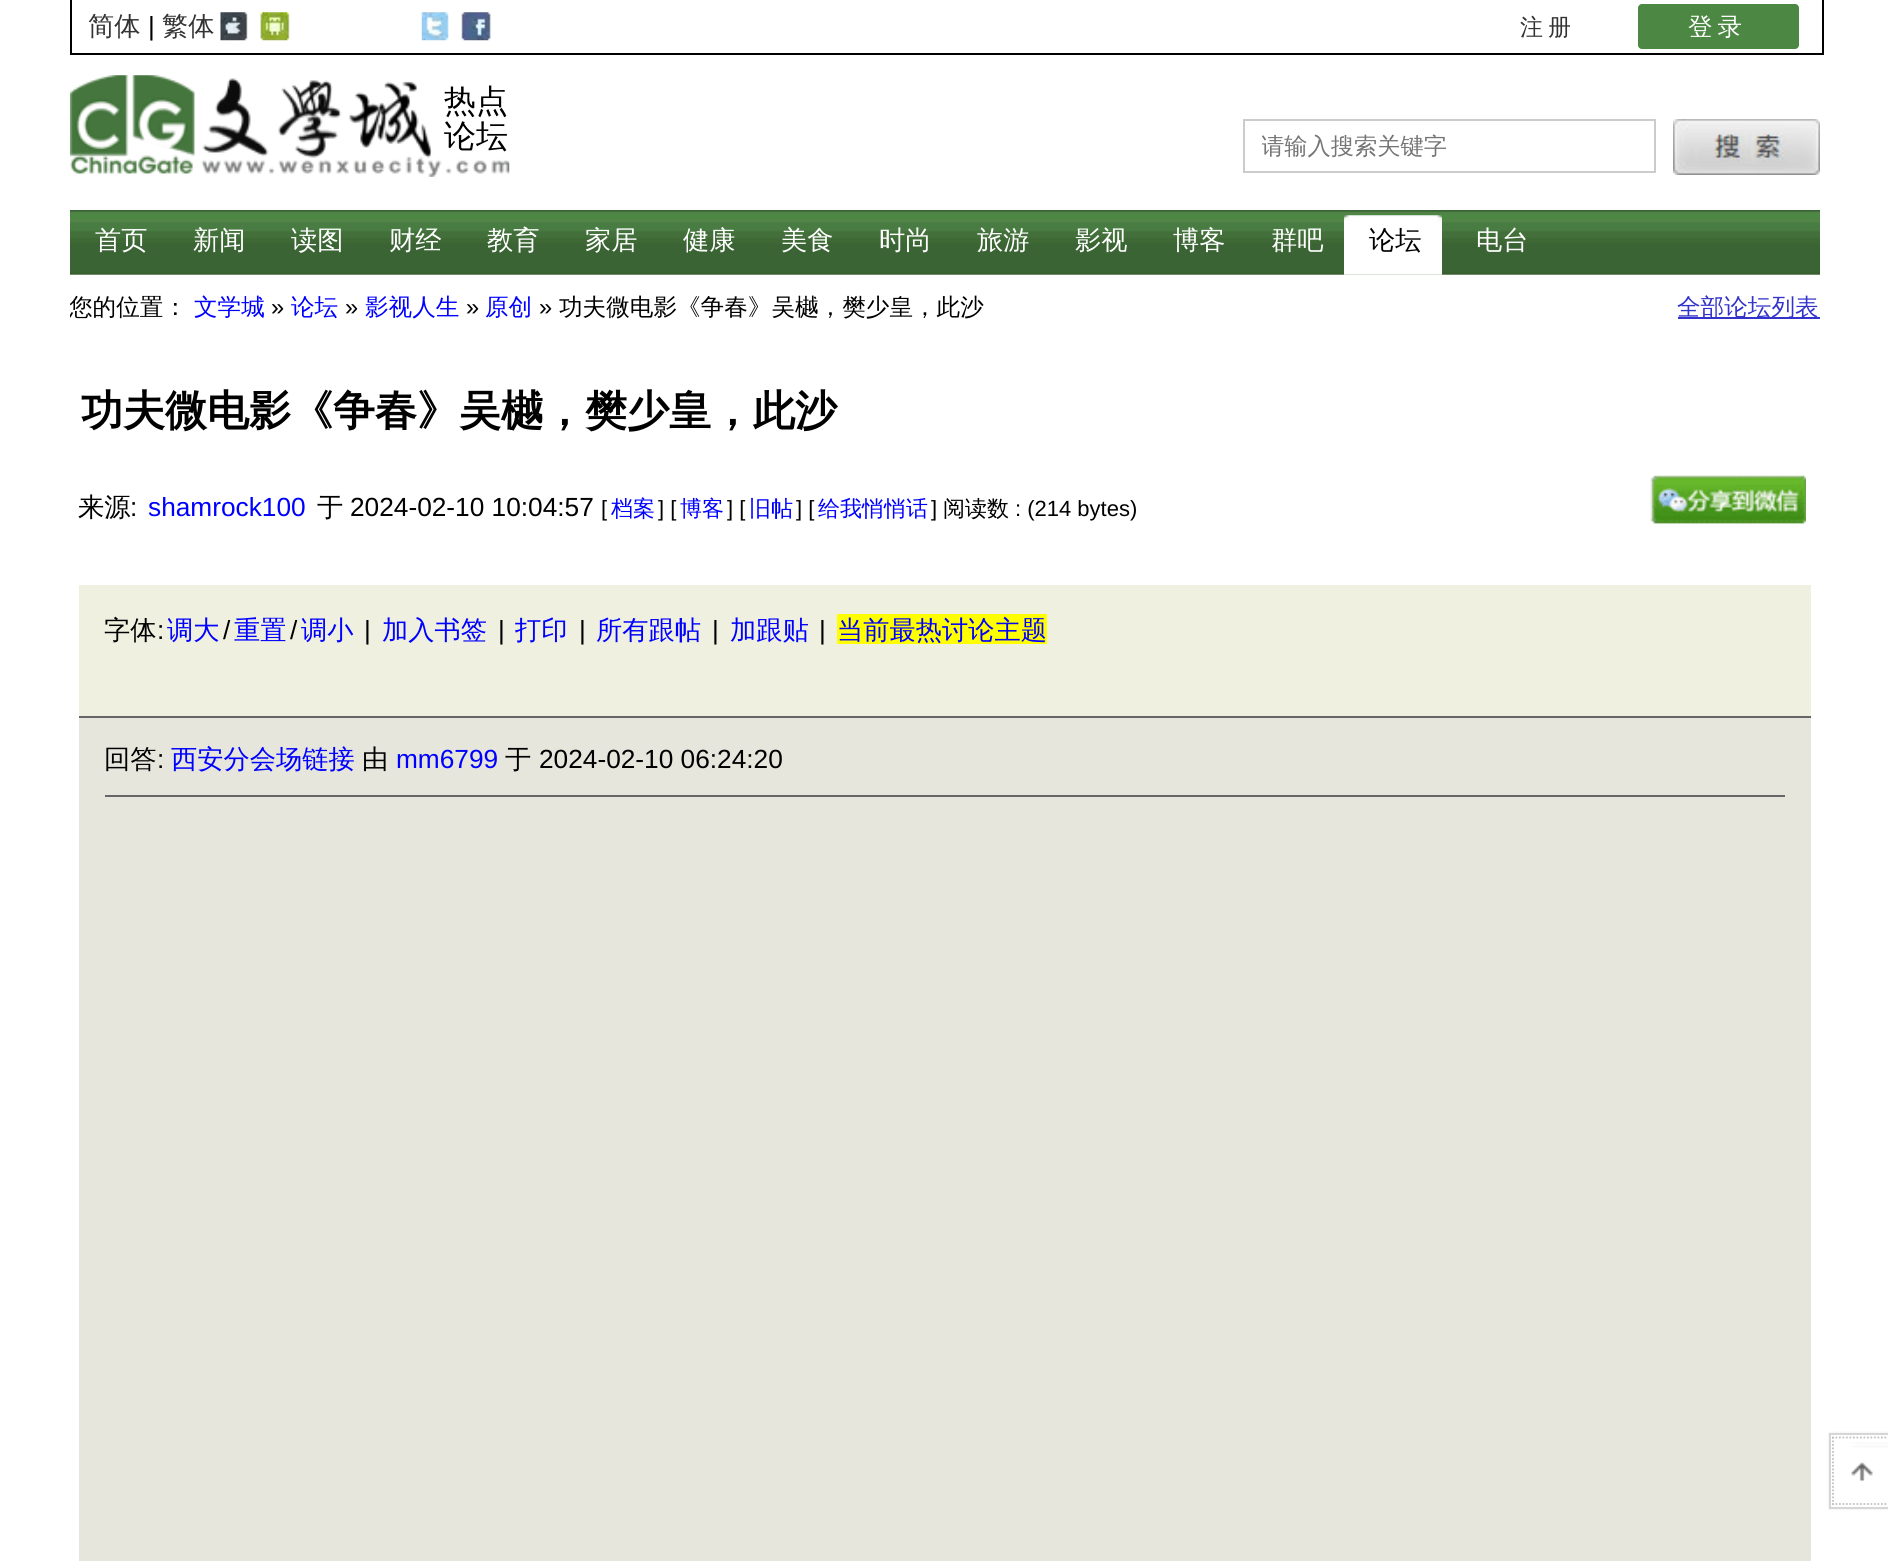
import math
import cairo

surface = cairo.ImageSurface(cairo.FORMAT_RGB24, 1888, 1561)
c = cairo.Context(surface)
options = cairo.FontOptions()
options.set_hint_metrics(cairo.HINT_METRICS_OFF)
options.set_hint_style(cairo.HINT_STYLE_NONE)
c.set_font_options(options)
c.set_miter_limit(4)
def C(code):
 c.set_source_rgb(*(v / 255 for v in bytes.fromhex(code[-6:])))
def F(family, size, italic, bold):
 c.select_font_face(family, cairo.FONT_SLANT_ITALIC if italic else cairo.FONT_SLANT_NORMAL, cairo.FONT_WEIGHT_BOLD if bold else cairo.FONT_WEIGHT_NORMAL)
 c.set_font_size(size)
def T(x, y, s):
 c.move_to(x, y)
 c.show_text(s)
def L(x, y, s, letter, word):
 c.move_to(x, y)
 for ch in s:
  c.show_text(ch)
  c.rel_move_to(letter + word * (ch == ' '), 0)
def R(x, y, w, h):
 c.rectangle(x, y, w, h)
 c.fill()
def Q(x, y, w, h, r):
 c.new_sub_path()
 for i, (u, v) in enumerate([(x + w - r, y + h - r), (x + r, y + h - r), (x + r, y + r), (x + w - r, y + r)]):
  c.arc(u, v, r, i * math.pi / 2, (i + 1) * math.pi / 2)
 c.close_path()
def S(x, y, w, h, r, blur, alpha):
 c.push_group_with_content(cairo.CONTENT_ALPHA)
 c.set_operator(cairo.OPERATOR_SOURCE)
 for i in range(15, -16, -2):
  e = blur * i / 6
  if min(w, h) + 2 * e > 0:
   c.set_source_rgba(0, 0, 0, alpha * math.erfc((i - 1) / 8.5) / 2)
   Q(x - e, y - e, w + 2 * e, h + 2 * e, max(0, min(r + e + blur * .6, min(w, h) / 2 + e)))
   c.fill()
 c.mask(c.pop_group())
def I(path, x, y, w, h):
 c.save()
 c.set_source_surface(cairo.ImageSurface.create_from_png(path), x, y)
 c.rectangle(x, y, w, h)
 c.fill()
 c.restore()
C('ffffff')
c.paint()
C('000000')
R(1822,0,2,54)
R(70,53,1754,2)
R(70,0,2,54)
F('WenQuanYi Zen Hei Medium',26.25,0,0)
C('333333')
T(88,35,'简体')
F('Liberation Sans',26.25,0,0)
C('000000')
T(148,35,'|')
F('WenQuanYi Zen Hei Medium',26.25,0,0)
C('333333')
T(162,35,'繁体')
I('1.png',220,12,28,29)
I('2.png',260,12,30,29)
I('3.png',421,12,28,29)
I('4.png',461,12,30,29)
F('WenQuanYi Zen Hei Medium',23,0,0)
L(1520,35,'注册',5,0)
C('4c8743')
Q(1638,4,161,45,4)
c.fill()
F('WenQuanYi Zen Hei Medium',24.5,0,0)
C('ffffff')
L(1688,35,'登录',5,0)
I('5.png',70,75,440,102)
F('WenQuanYi Zen Hei Medium',32,0,0)
C('000000')
T(444,112,'热点')
T(444,147,'论坛')
c.rectangle(1244,120,411,52)
C('cccccc')
c.stroke()
c.save()
c.rectangle(1262,131,392,32)
c.clip()
F('WenQuanYi Zen Hei Medium',23.25,0,0)
C('757575')
T(1261,154,'请输入搜索关键字')
c.restore()
I('6.png',1673,119,147,56)
I('7.png',70,210,1750,64)
C('6f8b6a')
R(70,274,1750,1)
F('WenQuanYi Zen Hei Medium',26.25,0,0)
C('ffffff')
T(95,249,'首页')
T(193,249,'新闻')
T(291,249,'读图')
T(389,249,'财经')
T(487,249,'教育')
T(585,249,'家居')
T(683,249,'健康')
T(781,249,'美食')
T(879,249,'时尚')
T(977,249,'旅游')
T(1075,249,'影视')
T(1173,249,'博客')
T(1271,249,'群吧')
I('8.png',1344,215,98,60)
C('000000')
T(1369,249,'论坛')
C('ffffff')
T(1476,249,'电台')
c.save()
c.rectangle(70,275,1575,101)
c.clip()
F('WenQuanYi Zen Hei Medium',23.6,0,0)
C('000000')
T(69,315,'您的位置：')
c.restore()
F('WenQuanYi Zen Hei Medium',23.6,0,0)
C('0000ff')
T(194,315,'文学城')
F('Liberation Sans',23.6,0,0)
C('000000')
T(271,315,'»')
F('WenQuanYi Zen Hei Medium',23.6,0,0)
C('0000ff')
T(291,315,'论坛')
F('Liberation Sans',23.6,0,0)
C('000000')
T(345,315,'»')
F('WenQuanYi Zen Hei Medium',23.6,0,0)
C('0000ff')
T(365,315,'影视人生')
F('Liberation Sans',23.6,0,0)
C('000000')
T(466,315,'»')
F('WenQuanYi Zen Hei Medium',23.6,0,0)
C('0000ff')
T(485,315,'原创')
F('Liberation Sans',23.6,0,0)
C('000000')
T(539,315,'»')
F('WenQuanYi Zen Hei Medium',23.6,0,0)
T(559,315,'功夫微电影《争春》吴樾，樊少皇，此沙')
C('3333cc')
R(1678,317,142,2)
T(1677,315,'全部论坛列表')
F('WenQuanYi Zen Hei',42,0,1)
C('000000')
T(81,425,'功夫微电影《争春》吴樾，樊少皇，此沙')
F('WenQuanYi Zen Hei Medium',26.25,0,0)
T(78,516,'来源')
F('Liberation Sans',26.25,0,0)
T(130,516,':')
C('0000ff')
T(148,516,'shamrock100')
F('WenQuanYi Zen Hei Medium',26.25,0,0)
C('000000')
T(317,516,'于')
F('Liberation Sans',26.25,0,0)
T(350,516,'2024-02-10 10:04:57')
F('Liberation Sans',22,0,0)
T(601,516,'[')
F('WenQuanYi Zen Hei Medium',22,0,0)
C('0000ff')
T(611,516,'档案')
F('Liberation Sans',22,0,0)
C('000000')
T(658,516,'] [')
F('WenQuanYi Zen Hei Medium',22,0,0)
C('0000ff')
T(680,516,'博客')
F('Liberation Sans',22,0,0)
C('000000')
T(727,516,'] [')
F('WenQuanYi Zen Hei Medium',22,0,0)
C('0000ff')
T(749,516,'旧帖')
F('Liberation Sans',22,0,0)
C('000000')
T(796,516,'] [')
F('WenQuanYi Zen Hei Medium',22,0,0)
C('0000ff')
T(818,516,'给我悄悄话')
F('Liberation Sans',22,0,0)
C('000000')
T(931,516,']')
F('WenQuanYi Zen Hei Medium',22,0,0)
T(943,516,'阅读数')
F('Liberation Sans',22,0,0)
T(1015,516,': (214 bytes)')
I('9.png',1650,475,156,49)
C('f0f0e0')
R(79,585,1732,131)
F('WenQuanYi Zen Hei Medium',26.25,0,0)
C('000000')
T(104,639,'字体')
F('Liberation Sans',26.25,0,0)
T(157,639,':')
F('WenQuanYi Zen Hei Medium',26.25,0,0)
C('0000ff')
T(167,639,'调大')
F('Liberation Sans',26.25,0,0)
C('000000')
T(223,639,'/')
F('WenQuanYi Zen Hei Medium',26.25,0,0)
C('0000ff')
T(234,639,'重置')
F('Liberation Sans',26.25,0,0)
C('000000')
T(290,639,'/')
F('WenQuanYi Zen Hei Medium',26.25,0,0)
C('0000ff')
T(301,639,'调小')
F('Liberation Sans',26.25,0,0)
C('000000')
T(364,639,'|')
F('WenQuanYi Zen Hei Medium',26.25,0,0)
C('0000ff')
T(382,639,'加入书签')
F('Liberation Sans',26.25,0,0)
C('000000')
T(498,639,'|')
F('WenQuanYi Zen Hei Medium',26.25,0,0)
C('0000ff')
T(515,639,'打印')
F('Liberation Sans',26.25,0,0)
C('000000')
T(579,639,'|')
F('WenQuanYi Zen Hei Medium',26.25,0,0)
C('0000ff')
T(596,639,'所有跟帖')
F('Liberation Sans',26.25,0,0)
C('000000')
T(712,639,'|')
F('WenQuanYi Zen Hei Medium',26.25,0,0)
C('0000ff')
T(730,639,'加跟贴')
F('Liberation Sans',26.25,0,0)
C('000000')
T(819,639,'|')
C('ffff00')
R(837,614,210,30)
F('WenQuanYi Zen Hei Medium',26.25,0,0)
C('0000ff')
T(837,639,'当前最热讨论主题')
C('e6e6dd')
R(79,718,1732,843)
C('666666')
R(79,716,1732,2)
R(105,795,1680,2)
C('000000')
T(104,768,'回答')
F('Liberation Sans',26.25,0,0)
T(157,768,':')
F('WenQuanYi Zen Hei Medium',26.25,0,0)
C('0000ff')
T(171,768,'西安分会场链接')
C('000000')
T(362,768,'由')
F('Liberation Sans',26.25,0,0)
C('0000ff')
T(396,768,'mm6799')
F('WenQuanYi Zen Hei Medium',26.25,0,0)
C('000000')
T(505,768,'于')
F('Liberation Sans',26.25,0,0)
T(539,768,'2024-02-10 06:24:20')
C('000000')
S(1829,1433,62,76,0,1,.1)
C('ffffff')
c.rectangle(1830,1434,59,74)
c.fill_preserve()
C('d6d6d6')
c.stroke()
c.new_path()
c.move_to(1832,1437.5)
c.line_to(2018,1437.5)
C('c1c1c1')
c.set_line_width(1.8)
c.set_dash([1.75,1.75])
c.stroke()
c.new_path()
c.move_to(1832,1504)
c.line_to(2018,1504)
c.stroke()
c.new_path()
c.move_to(1833,1437)
c.line_to(1833,1505)
c.stroke()
I('10.png',1851,1442,37,39)
surface.write_to_png('o.png')
